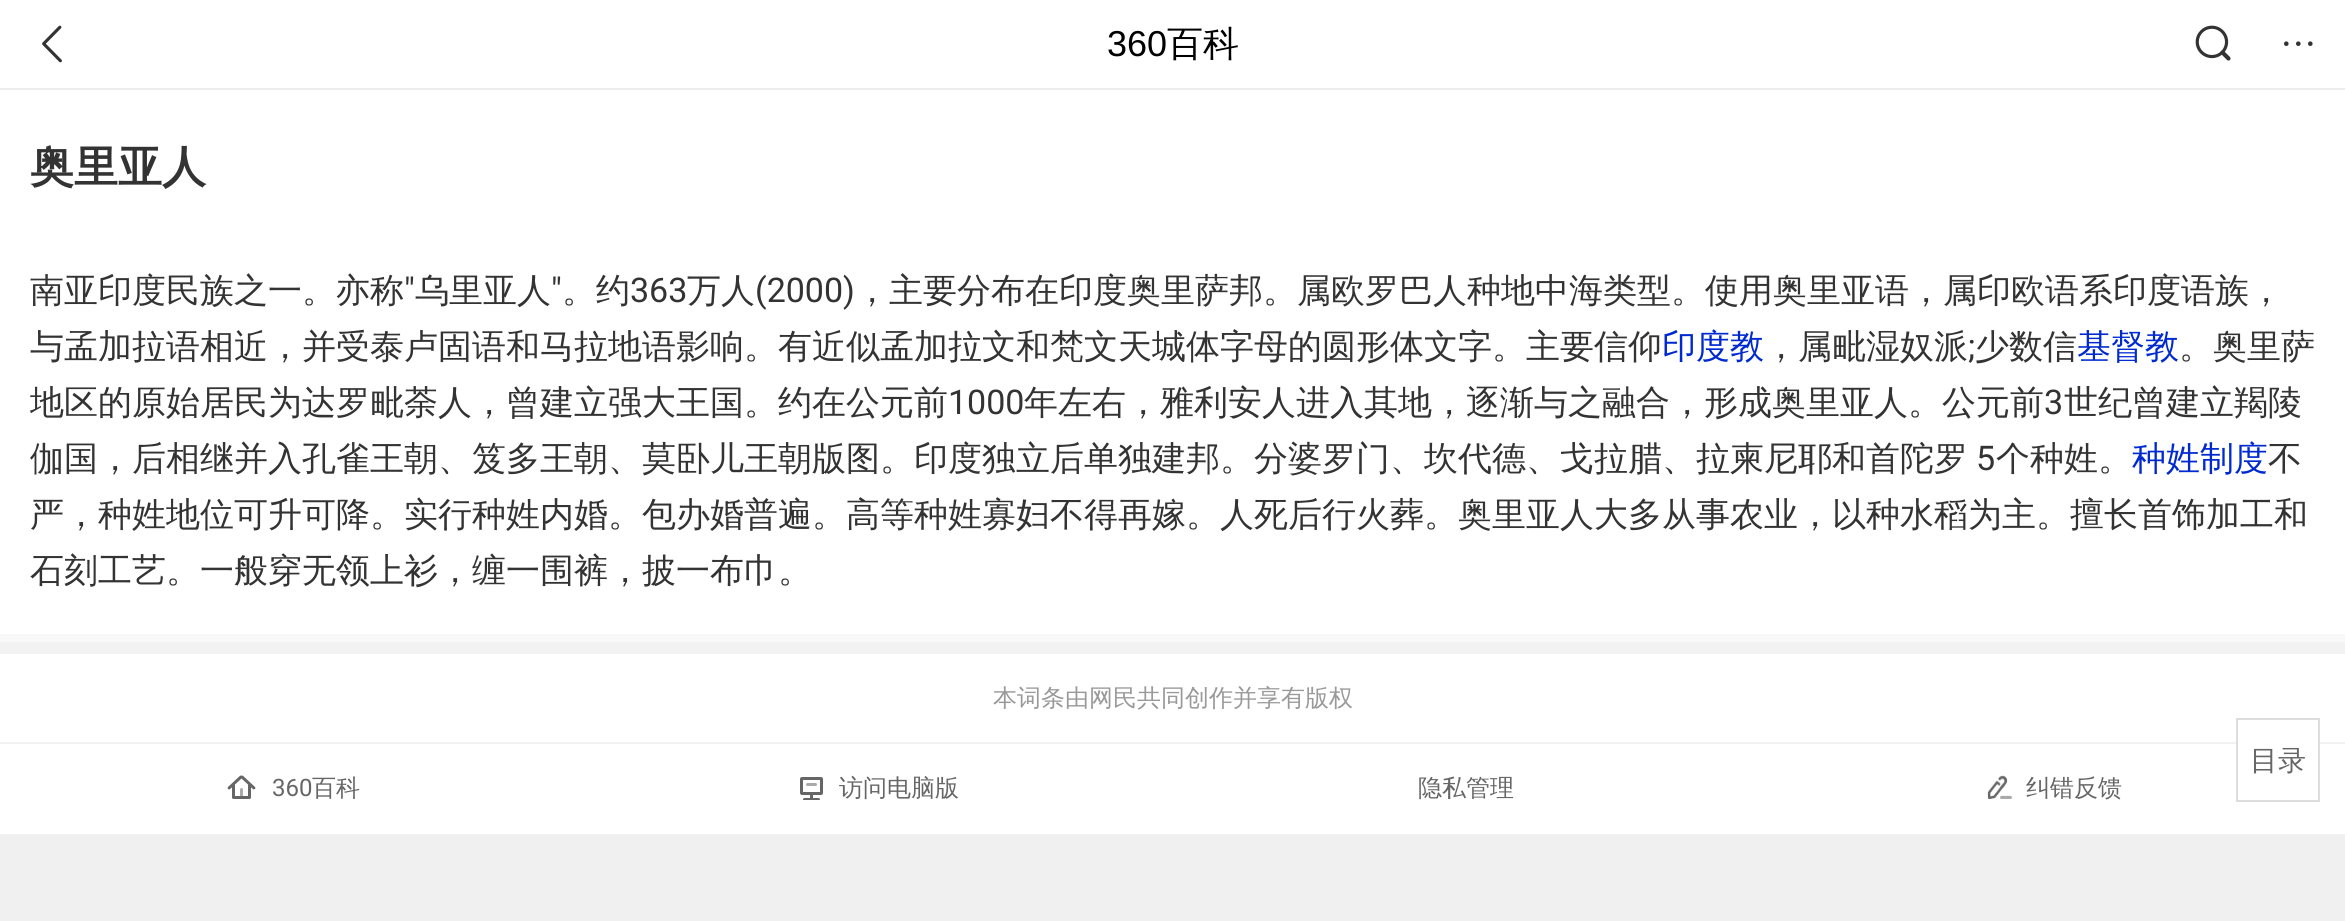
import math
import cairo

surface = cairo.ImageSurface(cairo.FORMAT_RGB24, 2345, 921)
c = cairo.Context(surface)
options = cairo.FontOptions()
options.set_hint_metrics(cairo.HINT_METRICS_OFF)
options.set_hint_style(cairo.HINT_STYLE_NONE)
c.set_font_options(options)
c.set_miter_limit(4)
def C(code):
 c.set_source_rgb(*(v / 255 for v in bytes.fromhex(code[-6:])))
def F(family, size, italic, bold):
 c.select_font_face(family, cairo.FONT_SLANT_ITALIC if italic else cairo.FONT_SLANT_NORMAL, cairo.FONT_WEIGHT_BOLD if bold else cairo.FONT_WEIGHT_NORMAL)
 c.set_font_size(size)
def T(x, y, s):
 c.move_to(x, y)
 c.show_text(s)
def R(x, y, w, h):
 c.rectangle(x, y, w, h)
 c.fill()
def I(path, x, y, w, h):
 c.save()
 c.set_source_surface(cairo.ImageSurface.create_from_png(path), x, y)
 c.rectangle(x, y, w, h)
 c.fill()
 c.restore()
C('f0f0f0')
c.paint()
C('ffffff')
R(0,90,2345,744)
R(0,0,2345,88)
C('ededed')
R(0,88,2345,2)
I('1.png',42,25,20,38)
F('Liberation Sans',36,0,0)
C('000000')
T(1107,56,'360')
F('WenQuanYi Zen Hei Medium',36,0,0)
T(1167,56,'百科')
I('2.png',2195,25,36,36)
C('333333')
c.arc(2286.3,43.7,2.3,0,2 * math.pi)
c.fill()
c.arc(2298.3,43.7,2.3,0,2 * math.pi)
c.fill()
c.arc(2310.3,43.7,2.3,0,2 * math.pi)
c.fill()
C('f2f2f2')
R(0,742,2345,2)
C('ffffff')
R(2238,742,80,2)
c.rectangle(2237,719,82,82)
C('dddddd')
c.stroke()
F('WenQuanYi Zen Hei Medium',28,0,0)
C('666666')
T(2250,770,'目录')
F('WenQuanYi Zen Hei',44,0,1)
C('333333')
T(30,182,'奥里亚人')
F('WenQuanYi Zen Hei Medium',34,0,0)
T(30,302,'南亚印度民族之一。亦称')
F('Roboto',34,0,0)
T(404,302,'"')
F('WenQuanYi Zen Hei Medium',34,0,0)
T(415,302,'乌里亚人')
F('Roboto',34,0,0)
T(551,302,'"')
F('WenQuanYi Zen Hei Medium',34,0,0)
T(562,302,'。约')
F('Roboto',34,0,0)
T(630,302,'363')
F('WenQuanYi Zen Hei Medium',34,0,0)
T(687,302,'万人')
F('Roboto',34,0,0)
T(755,302,'(2000)')
F('WenQuanYi Zen Hei Medium',34,0,0)
T(855,302,'，主要分布在印度奥里萨邦。属欧罗巴人种地中海类型。使用奥里亚语，属印欧语系印度语族，')
T(30,358,'与孟加拉语相近，并受泰卢固语和马拉地语影响。有近似孟加拉文和梵文天城体字母的圆形体文字。主要信仰')
C('002ad0')
T(1662,358,'印度教')
C('333333')
T(1764,358,'，属毗湿奴派')
F('Roboto',34,0,0)
T(1968,358,';')
F('WenQuanYi Zen Hei Medium',34,0,0)
T(1975,358,'少数信')
C('002ad0')
T(2077,358,'基督教')
C('333333')
T(2179,358,'。奥里萨')
T(30,414,'地区的原始居民为达罗毗荼人，曾建立强大王国。约在公元前')
F('Roboto',34,0,0)
T(948,414,'1000')
F('WenQuanYi Zen Hei Medium',34,0,0)
T(1024,414,'年左右，雅利安人进入其地，逐渐与之融合，形成奥里亚人。公元前')
F('Roboto',34,0,0)
T(2044,414,'3')
F('WenQuanYi Zen Hei Medium',34,0,0)
T(2064,414,'世纪曾建立羯陵')
T(30,470,'伽国，后相继并入孔雀王朝、笈多王朝、莫卧儿王朝版图。印度独立后单独建邦。分婆罗门、坎代德、戈拉腊、拉柬尼耶和首陀罗')
F('Roboto',34,0,0)
T(1976,470,'5')
F('WenQuanYi Zen Hei Medium',34,0,0)
T(1996,470,'个种姓。')
C('002ad0')
T(2132,470,'种姓制度')
C('333333')
T(2268,470,'不')
T(30,526,'严，种姓地位可升可降。实行种姓内婚。包办婚普遍。高等种姓寡妇不得再嫁。人死后行火葬。奥里亚人大多从事农业，以种水稻为主。擅长首饰加工和')
T(30,582,'石刻工艺。一般穿无领上衫，缠一围裤，披一布巾。')
C('f8f8f8')
R(0,634,2345,8)
C('f2f2f2')
R(0,642,2345,12)
F('WenQuanYi Zen Hei Medium',24,0,0)
C('999999')
T(993,706,'本词条由网民共同创作并享有版权')
I('3.png',227,775,29,24)
F('Roboto',24,0,0)
C('666666')
T(272,796,'360')
F('WenQuanYi Zen Hei Medium',24,0,0)
T(312,796,'百科')
I('4.png',800,777,23,23)
T(839,796,'访问电脑版')
T(1418,796,'隐私管理')
I('5.png',1987,775,25,24)
T(2026,796,'纠错反馈')
surface.write_to_png('o.png')
